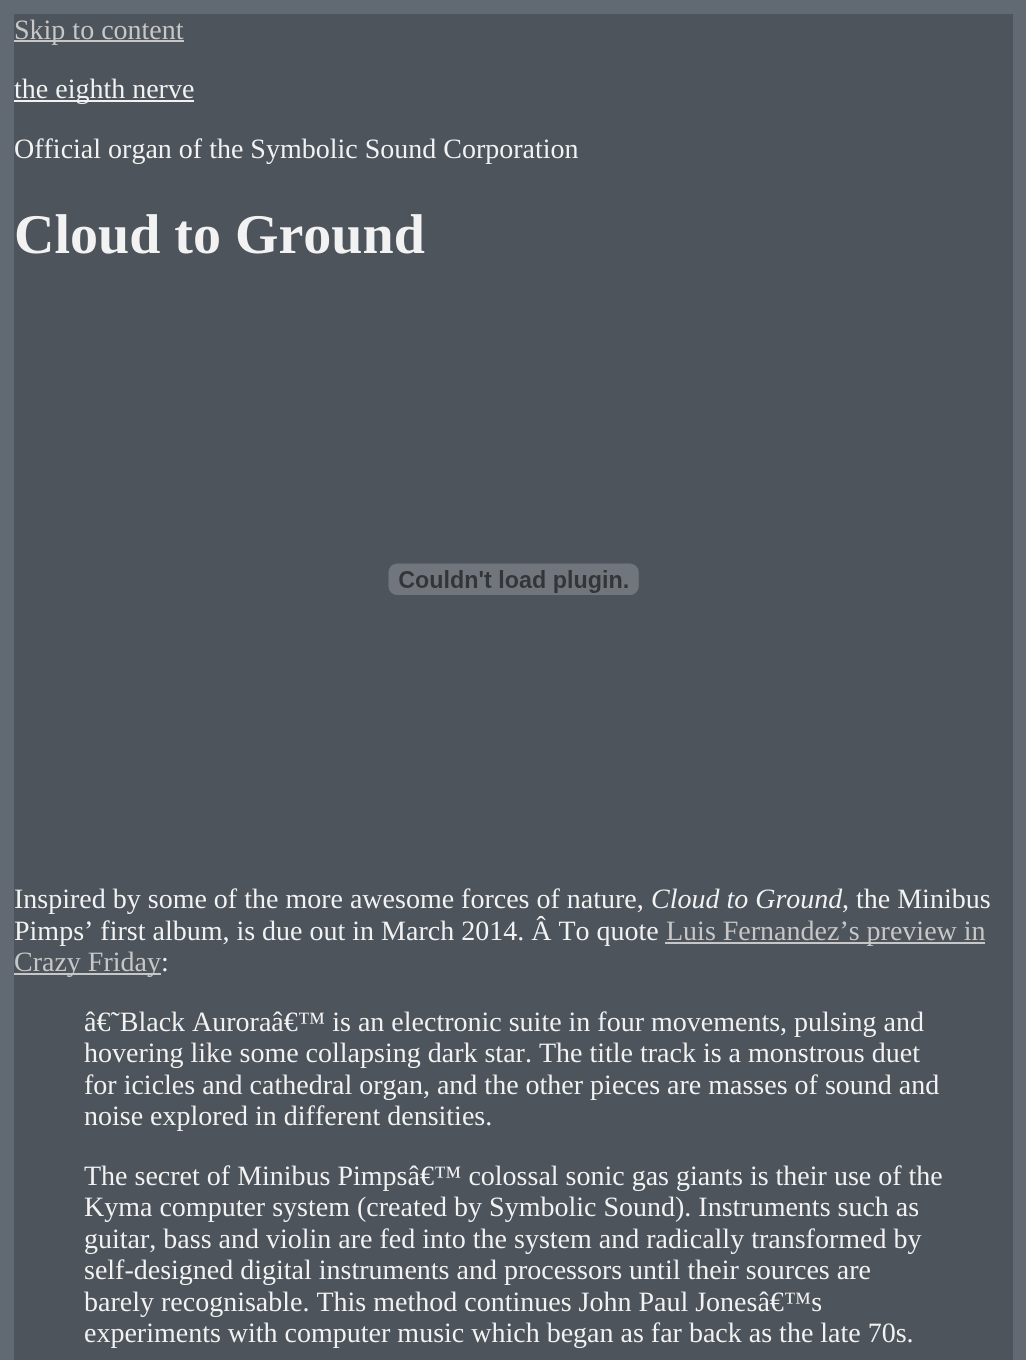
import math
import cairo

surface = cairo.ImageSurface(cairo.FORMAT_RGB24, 1026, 1360)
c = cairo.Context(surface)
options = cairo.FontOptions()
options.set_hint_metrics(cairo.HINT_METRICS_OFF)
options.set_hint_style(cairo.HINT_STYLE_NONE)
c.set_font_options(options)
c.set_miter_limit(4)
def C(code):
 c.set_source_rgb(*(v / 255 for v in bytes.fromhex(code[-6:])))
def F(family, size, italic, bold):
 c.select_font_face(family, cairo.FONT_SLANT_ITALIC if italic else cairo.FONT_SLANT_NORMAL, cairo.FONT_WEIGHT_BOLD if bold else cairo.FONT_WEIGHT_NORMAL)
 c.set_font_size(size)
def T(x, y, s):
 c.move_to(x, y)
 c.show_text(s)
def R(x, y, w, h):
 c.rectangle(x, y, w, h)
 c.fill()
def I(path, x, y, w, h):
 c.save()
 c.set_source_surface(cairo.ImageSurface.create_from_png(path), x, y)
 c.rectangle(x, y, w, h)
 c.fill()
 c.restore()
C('616a73')
c.paint()
C('4d545c')
R(14,14,999,1346)
C('c7c7c7')
R(14,40,170,2)
F('Liberation Serif',28,0,0)
T(14,39,'Skip to content')
C('f2f2f2')
R(14,100,180,2)
T(14,98,'the eighth nerve')
T(14,158,'Official organ of the Symbolic Sound Corporation')
F('Liberation Serif',56,0,1)
T(14,253,'Cloud to Ground')
I('1.png',388,563,251,32)
F('Liberation Serif',28,0,0)
T(14,908,'Inspired by some of the more awesome forces of nature,')
F('Liberation Serif',28,1,0)
T(651,908,'Cloud to Ground')
F('Liberation Serif',28,0,0)
T(842,908,', the Minibus')
T(14,940,'Pimps’ first album, is due out in March 2014. Â To quote')
C('c7c7c7')
R(665,942,320,2)
T(666,940,'Luis Fernandez’s preview in')
R(14,973,147,2)
T(14,971,'Crazy Friday')
C('f2f2f2')
T(161,971,':')
T(84,1031,'â€˜Black Auroraâ€™ is an electronic suite in four movements, pulsing and')
T(84,1062,'hovering like some collapsing dark star. The title track is a monstrous duet')
T(84,1094,'for icicles and cathedral organ, and the other pieces are masses of sound and')
T(84,1125,'noise explored in different densities.')
T(84,1185,'The secret of Minibus Pimpsâ€™ colossal sonic gas giants is their use of the')
T(84,1216,'Kyma computer system (created by Symbolic Sound). Instruments such as')
T(84,1248,'guitar, bass and violin are fed into the system and radically transformed by')
T(84,1279,'self-designed digital instruments and processors until their sources are')
T(84,1311,'barely recognisable. This method continues John Paul Jonesâ€™s')
T(84,1342,'experiments with computer music which began as far back as the late 70s.')
surface.write_to_png('o.png')
